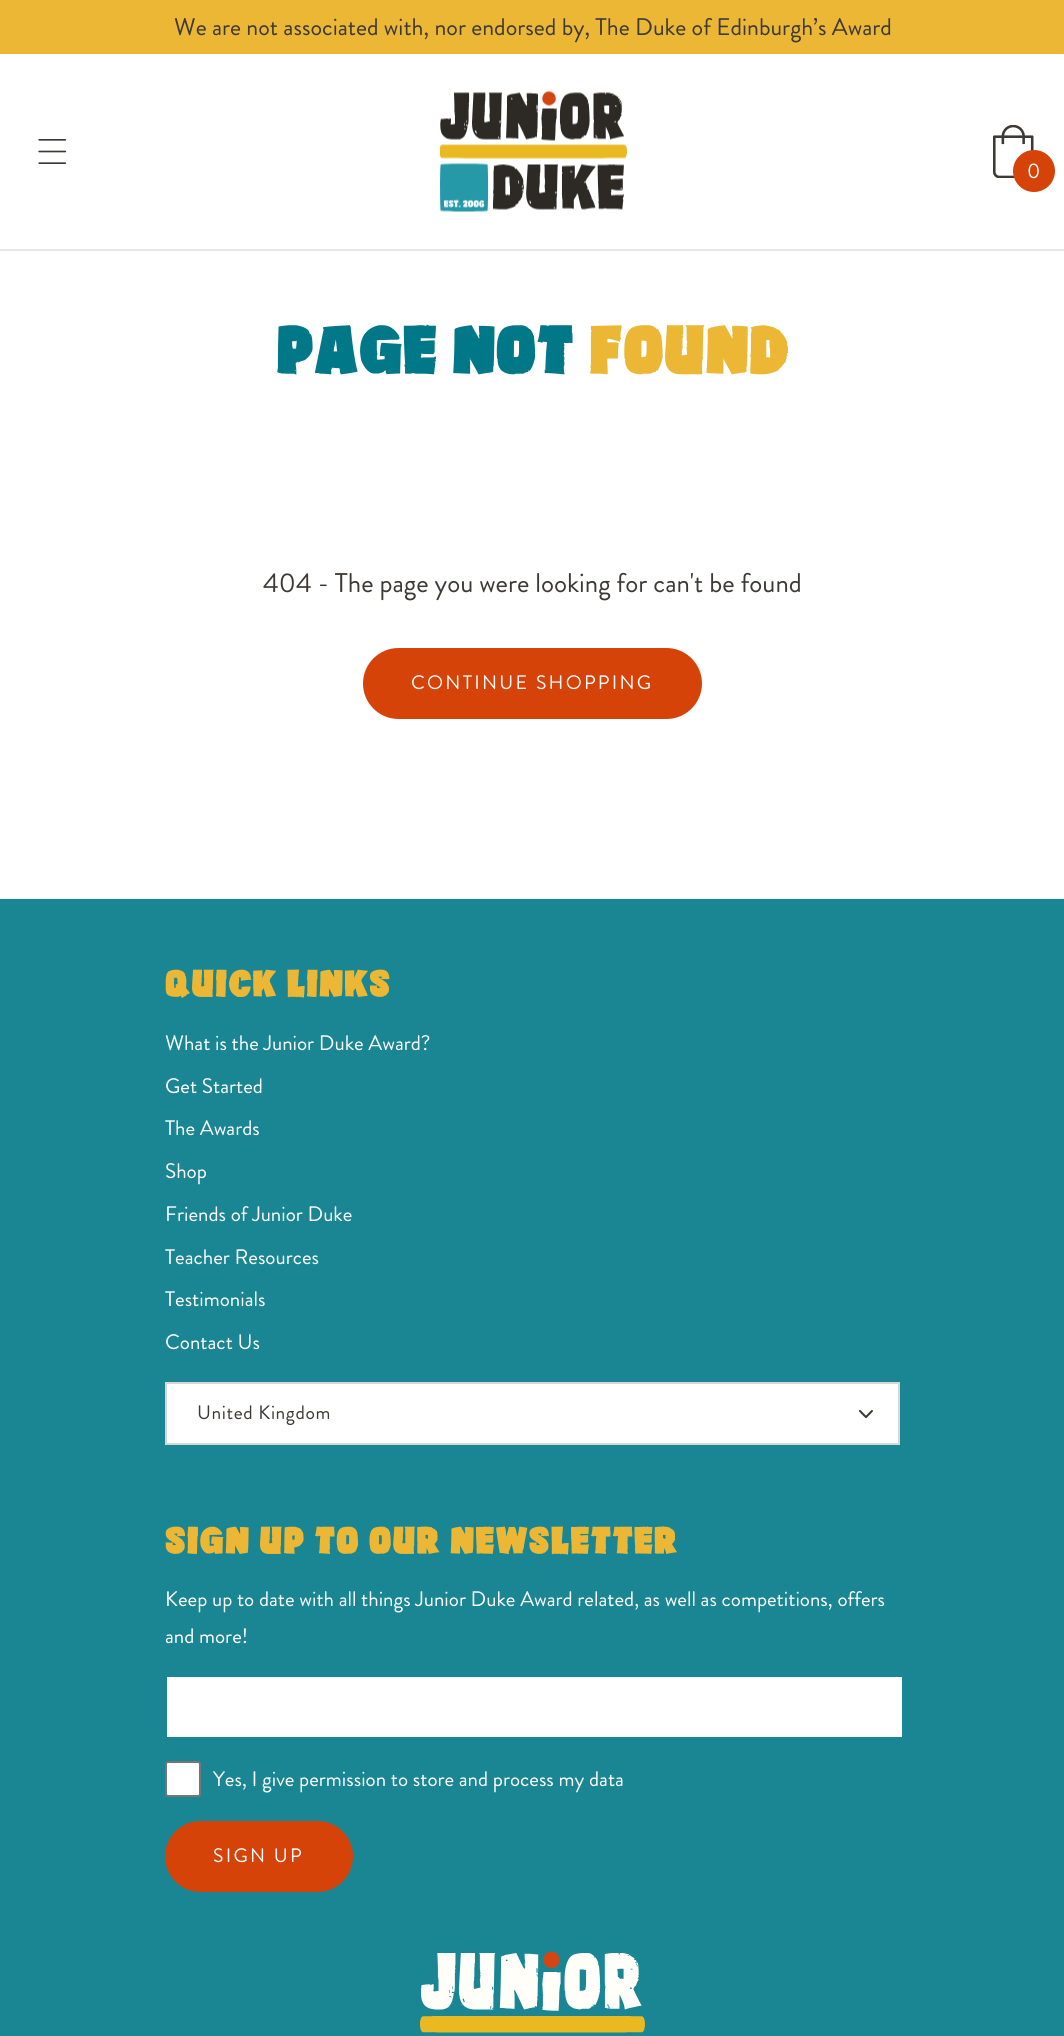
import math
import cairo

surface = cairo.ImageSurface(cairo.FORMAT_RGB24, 1064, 2036)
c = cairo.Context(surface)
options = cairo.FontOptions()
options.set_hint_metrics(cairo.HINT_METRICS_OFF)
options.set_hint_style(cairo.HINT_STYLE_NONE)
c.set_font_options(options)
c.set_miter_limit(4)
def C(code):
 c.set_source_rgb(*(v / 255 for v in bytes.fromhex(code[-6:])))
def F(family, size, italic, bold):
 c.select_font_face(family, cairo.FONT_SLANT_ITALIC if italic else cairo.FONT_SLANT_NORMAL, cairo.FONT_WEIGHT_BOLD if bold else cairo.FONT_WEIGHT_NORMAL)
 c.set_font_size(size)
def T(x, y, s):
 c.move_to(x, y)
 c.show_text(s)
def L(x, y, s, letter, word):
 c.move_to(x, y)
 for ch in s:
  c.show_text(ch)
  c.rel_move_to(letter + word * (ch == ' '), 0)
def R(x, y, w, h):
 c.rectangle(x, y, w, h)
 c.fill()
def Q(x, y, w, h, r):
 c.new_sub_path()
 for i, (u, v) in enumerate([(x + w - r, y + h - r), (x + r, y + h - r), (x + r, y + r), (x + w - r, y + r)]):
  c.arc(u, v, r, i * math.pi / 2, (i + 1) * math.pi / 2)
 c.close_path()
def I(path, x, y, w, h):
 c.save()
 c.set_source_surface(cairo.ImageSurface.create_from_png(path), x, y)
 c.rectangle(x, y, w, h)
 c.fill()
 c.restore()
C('ffffff')
c.paint()
C('ebb734')
R(0,0,1064,54)
F('Brandon Grotesque',24,0,0)
C('3d3935')
T(174,35,'We are not associated with, nor endorsed by, The Duke of Edinburgh’s Award')
C('e7e7e7')
R(0,249,1064,2)
I('1.png',38,139,29,25)
I('2.png',440,91,187,121)
I('3.png',993,125,41,53)
C('d64309')
c.arc(1034,171,21,0,2 * math.pi)
c.fill()
F('Brandon Grotesque',21,0,0)
C('ffffff')
T(1027,178,'0')
F('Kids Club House',54,0,1)
C('007887')
L(276,369,'PAGE NOT',1.5,0)
C('ebb734')
L(589,369,'FOUND',1.5,0)
F('Brandon Grotesque',27,0,0)
C('3d3935')
T(263,592,'404 - The page you were looking for can\'t be found')
C('d64309')
Q(363,648,339,71,35.5)
c.fill()
F('Brandon Grotesque',19.5,0,0)
C('ffffff')
L(411,689,'CONTINUE SHOPPING',2.25,0)
C('1a8693')
R(0,899,1064,1137)
F('Kids Club House',30,0,1)
C('ebb734')
L(165,994,'QUICK LINKS',1.8,0)
F('Brandon Grotesque',21,0,0)
C('ffffff')
T(165,1050,'What is the Junior Duke Award?')
T(165,1093,'Get Started')
T(165,1135,'The Awards')
T(165,1178,'Shop')
T(165,1221,'Friends of Junior Duke')
T(165,1264,'Teacher Resources')
T(165,1306,'Testimonials')
T(165,1349,'Contact Us')
R(167,1384,731,59)
I('4.png',859,1410,14,9)
c.rectangle(166,1383,733,61)
C('d8d7d7')
c.stroke()
F('Brandon Grotesque',19.5,0,0)
C('3d3935')
L(197,1419,'United Kingdom',.6,0)
F('Kids Club House',30,0,1)
C('ebb734')
L(165,1551,'SIGN UP TO OUR NEWSLETTER',1.8,0)
F('Brandon Grotesque',21,0,0)
C('ffffff')
T(165,1606,'Keep up to date with all things Junior Duke Award related, as well as competitions, offers')
T(165,1643,'and more!')
R(167,1677,735,60)
Q(166,1762,34,34,2)
c.fill_preserve()
C('767676')
c.stroke()
C('ffffff')
T(213,1786,'Yes, I give permission to store and process my data')
C('d64309')
Q(165,1821,188,71,35.5)
c.fill()
F('Brandon Grotesque',19.5,0,0)
C('ffffff')
L(213,1862,'SIGN UP',2.25,0)
I('5.png',420,1952,225,81)
surface.write_to_png('o.png')
